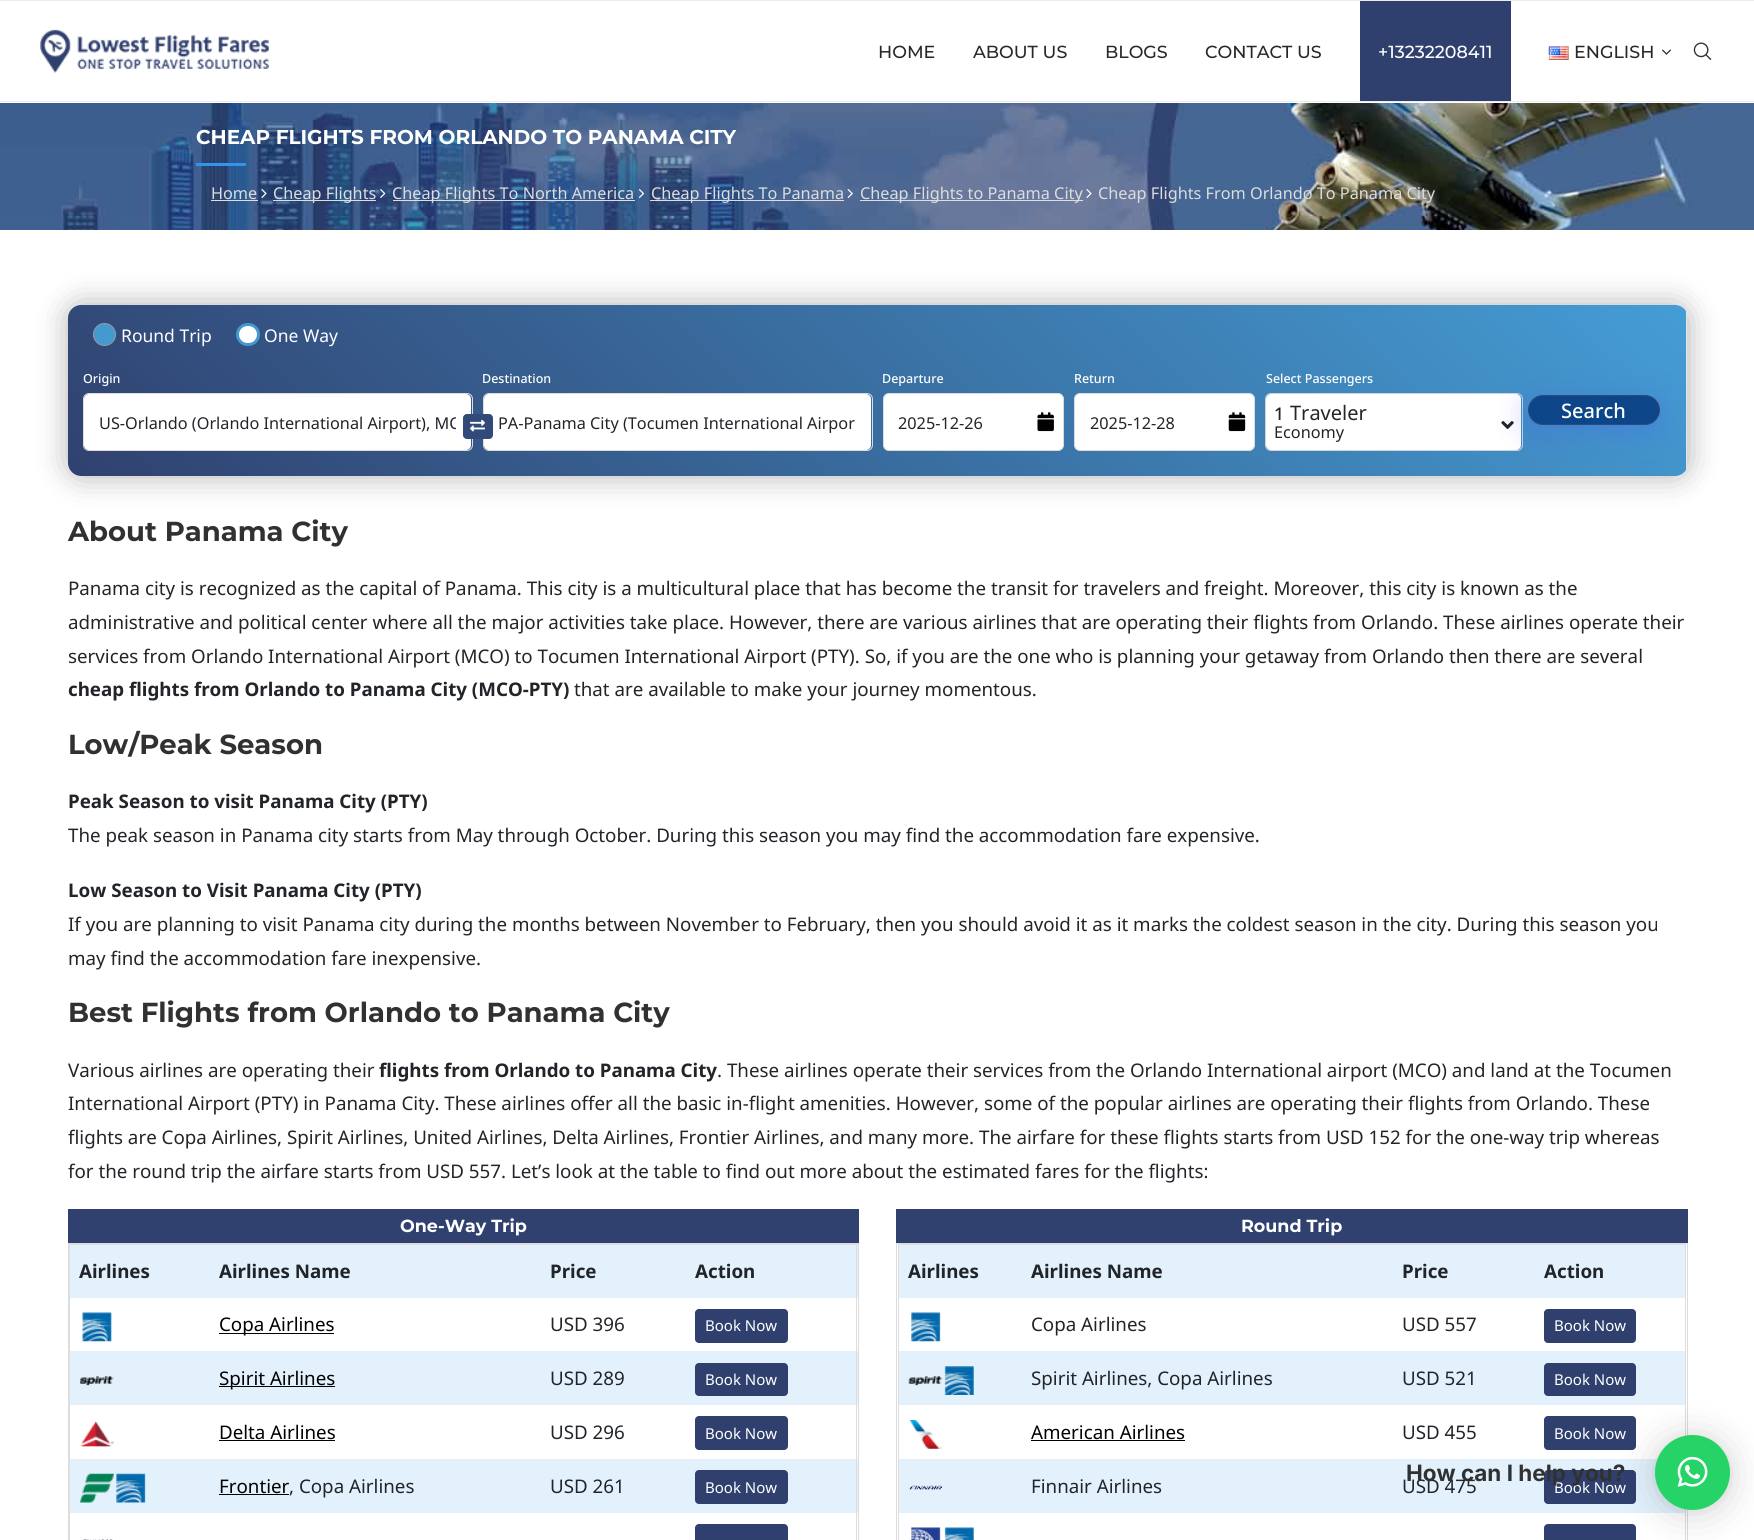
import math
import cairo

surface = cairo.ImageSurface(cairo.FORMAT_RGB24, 1754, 1540)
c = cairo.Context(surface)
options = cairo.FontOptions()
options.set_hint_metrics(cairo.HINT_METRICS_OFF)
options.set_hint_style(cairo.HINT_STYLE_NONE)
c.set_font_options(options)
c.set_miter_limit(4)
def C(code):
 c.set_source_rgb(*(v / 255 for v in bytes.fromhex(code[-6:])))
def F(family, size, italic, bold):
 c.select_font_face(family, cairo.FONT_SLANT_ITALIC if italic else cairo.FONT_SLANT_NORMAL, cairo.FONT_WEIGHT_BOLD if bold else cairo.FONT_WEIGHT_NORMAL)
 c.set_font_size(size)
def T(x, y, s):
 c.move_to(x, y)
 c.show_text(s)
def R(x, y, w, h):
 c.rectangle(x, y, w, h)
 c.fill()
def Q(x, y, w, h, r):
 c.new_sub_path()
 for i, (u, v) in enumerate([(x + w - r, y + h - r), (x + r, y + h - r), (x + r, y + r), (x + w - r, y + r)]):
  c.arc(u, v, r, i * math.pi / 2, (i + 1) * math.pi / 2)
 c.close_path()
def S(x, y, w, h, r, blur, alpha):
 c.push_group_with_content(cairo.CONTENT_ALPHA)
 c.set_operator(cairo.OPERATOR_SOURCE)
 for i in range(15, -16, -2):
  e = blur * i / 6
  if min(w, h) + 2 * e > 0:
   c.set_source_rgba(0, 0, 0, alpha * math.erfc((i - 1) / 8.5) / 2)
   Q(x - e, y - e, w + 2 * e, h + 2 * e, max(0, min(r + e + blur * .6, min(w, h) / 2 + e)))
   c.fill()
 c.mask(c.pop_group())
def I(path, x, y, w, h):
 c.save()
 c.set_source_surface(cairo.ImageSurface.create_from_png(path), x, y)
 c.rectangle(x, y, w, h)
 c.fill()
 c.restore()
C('ffffff')
c.paint()
C('ececec')
R(0,0,1754,1)
R(0,101,1754,1)
I('1.png',40,29,229,44)
F('Montserrat Medium',17.5,0,0)
C('282828')
T(878,58,'HOME')
T(973,58,'ABOUT US')
T(1105,58,'BLOGS')
T(1205,58,'CONTACT US')
C('30406e')
R(1360,1,151,100)
C('ffffff')
T(1378,58,'+13232208411')
I('2.png',1548,46,21,14)
C('282828')
T(1574,58,'ENGLISH')
I('3.png',1662,49,9,6)
I('4.png',1693,42,19,18)
I('5.png',0,103,1754,127)
F('Montserrat',20,0,1)
C('ffffff')
T(196,144,'CHEAP FLIGHTS FROM ORLANDO TO PANAMA CITY')
C('3395e9')
R(196,163,50,3)
F('Noto Sans',16.25,0,0)
C('dddddd')
T(211,199,'Home')
R(211,200,47,1)
I('6.png',261,189,6,9)
R(273,200,103,1)
T(273,199,'Cheap Flights')
I('7.png',380,189,6,9)
R(393,200,242,1)
T(392,199,'Cheap Flights To North America')
I('8.png',638,189,7,9)
R(650,200,194,1)
T(651,199,'Cheap Flights To Panama')
I('9.png',847,189,6,9)
R(860,200,223,1)
T(860,199,'Cheap Flights to Panama City')
I('10.png',1086,189,6,9)
T(1098,199,'Cheap Flights From Orlando To Panama City')
C('000000')
S(68,305,1620,171,13,15.5,.3)
c.save()
Q(68,305,1620,171,13)
c.clip()
gradient = cairo.LinearGradient(429,838,1324,-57)
gradient.add_color_stop_rgba(0,0.188,0.255,0.435,1)
gradient.add_color_stop_rgba(1,0.267,0.616,0.835,1)
c.set_source(gradient)
c.new_path()
c.move_to(81,305)
c.line_to(1686,305)
c.line_to(1686,476)
c.line_to(81,476)
c.curve_to(74,476,68,470,68,463)
c.line_to(68,318)
c.curve_to(68,311,74,305,81,305)
c.close_path()
c.fill()
c.restore()
C('e4e4e4')
R(1686,311,1,159)
C('4399d0')
c.arc(104.5,334.5,11,0,2 * math.pi)
c.fill_preserve()
C('9b9b9b')
c.set_line_width(1)
c.stroke()
F('Noto Sans',17.5,0,0)
C('ffffff')
T(121,342,'Round Trip')
Q(237.5,324.5,21,20,10)
c.fill_preserve()
C('4398cf')
c.set_line_width(3)
c.stroke()
C('ffffff')
T(264,342,'One Way')
F('Noto Sans Medium',12.5,0,0)
T(83,383,'Origin')
Q(84,394,387,56,5)
c.fill()
Q(83.5,393.5,389,57,5.5)
C('dcdcdc')
c.set_line_width(1)
c.stroke()
c.save()
c.rectangle(99,411,357,23)
c.clip()
F('Noto Sans',16.25,0,0)
C('212529')
T(99,429,'US-Orlando (Orlando International Airport), MC')
c.restore()
C('ffffff')
Q(484,394,387,56,5)
c.fill()
Q(483.5,393.5,389,57,5.5)
C('dcdcdc')
c.stroke()
C('324a79')
Q(463,414,30,25,4)
c.fill()
I('11.png',470,419,15,13)
C('ffffff')
T(482,383,'Destination')
F('Noto Sans',16.25,0,0)
C('212529')
T(498,429,'PA-Panama City (Tocumen International Airpor')
F('Noto Sans Medium',12.5,0,0)
C('ffffff')
T(882,383,'Departure')
Q(883.5,393.5,180,57,5.5)
c.fill_preserve()
C('dcdcdc')
c.stroke()
F('Noto Sans',16.25,0,0)
C('212529')
T(898,429,'2025-12-26')
I('12.png',1037,412,17,20)
F('Noto Sans Medium',12.5,0,0)
C('ffffff')
T(1074,383,'Return')
Q(1074.5,393.5,180,57,5.5)
c.fill_preserve()
C('dcdcdc')
c.stroke()
F('Noto Sans',16.25,0,0)
C('212529')
T(1090,429,'2025-12-28')
I('13.png',1228,412,18,20)
F('Noto Sans Medium',12.5,0,0)
C('ffffff')
T(1266,383,'Select Passengers')
Q(1266,394,255,56,5)
c.fill()
Q(1265.5,393.5,257,57,5.5)
C('ced4da')
c.stroke()
F('Noto Sans Medium',17.5,0,0)
C('212529')
T(1274,420,'1')
F('Noto Sans',20,0,0)
T(1290,420,'Traveler')
C('4154f1')
S(1528,401,132,30,15,15.5,.3)
I('14.png',1501,421,13,8)
F('Noto Sans',16.25,0,0)
C('212529')
T(1274,438,'Economy')
C('0d4589')
Q(1528.5,395.5,131,29,14.5)
c.fill_preserve()
C('314978')
c.stroke()
F('Noto Sans Medium',20,0,0)
C('ffffff')
T(1561,418,'Search')
F('Montserrat',27.5,0,1)
C('313131')
T(68,541,'About Panama City')
F('Noto Sans',18.75,0,0)
C('212529')
T(68,595,'Panama city is recognized as the capital of Panama. This city is a multicultural place that has become the transit for travelers and freight. Moreover, this city is known as the')
T(68,629,'administrative and political center where all the major activities take place. However, there are various airlines that are operating their flights from Orlando. These airlines operate their')
T(68,663,'services from Orlando International Airport (MCO) to Tocumen International Airport (PTY). So, if you are the one who is planning your getaway from Orlando then there are several')
F('Noto Sans',18.75,0,1)
T(68,696,'cheap flights from Orlando to Panama City (MCO-PTY)')
F('Noto Sans',18.75,0,0)
T(574,696,'that are available to make your journey momentous.')
F('Montserrat',27.5,0,1)
C('313131')
T(68,754,'Low/Peak Season')
F('Noto Sans',18.75,0,1)
C('212529')
T(68,808,'Peak Season to visit Panama City (PTY)')
F('Noto Sans',18.75,0,0)
T(68,842,'The peak season in Panama city starts from May through October. During this season you may find the accommodation fare expensive.')
F('Noto Sans',18.75,0,1)
T(68,897,'Low Season to Visit Panama City (PTY)')
F('Noto Sans',18.75,0,0)
T(68,931,'If you are planning to visit Panama city during the months between November to February, then you should avoid it as it marks the coldest season in the city. During this season you')
T(68,965,'may find the accommodation fare inexpensive.')
F('Montserrat',27.5,0,1)
C('313131')
T(68,1022,'Best Flights from Orlando to Panama City')
F('Noto Sans',18.75,0,0)
C('212529')
T(68,1077,'Various airlines are operating their')
F('Noto Sans',18.75,0,1)
T(379,1077,'flights from Orlando to Panama City')
F('Noto Sans',18.75,0,0)
T(717,1077,'. These airlines operate their services from the Orlando International airport (MCO) and land at the Tocumen')
T(68,1110,'International Airport (PTY) in Panama City. These airlines offer all the basic in-flight amenities. However, some of the popular airlines are operating their flights from Orlando. These')
T(68,1144,'flights are Copa Airlines, Spirit Airlines, United Airlines, Delta Airlines, Frontier Airlines, and many more. The airfare for these flights starts from USD 152 for the one-way trip whereas')
T(68,1178,'for the round trip the airfare starts from USD 557. Let’s look at the table to find out more about the estimated fares for the flights:')
C('30416f')
R(68,1209,791,34)
F('Montserrat',17.5,0,1)
C('ffffff')
T(400,1232,'One-Way Trip')
c.rectangle(68.5,1243.5,790,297)
C('dcdcdc')
c.stroke()
C('dedede')
R(69,1244,789,1)
C('e2f1fc')
R(70,1245,788,53)
R(70,1351,788,54)
R(70,1459,788,54)
C('dedede')
R(856,1244,1,296)
R(69,1244,1,296)
F('Noto Sans',18.75,0,1)
C('212529')
T(79,1278,'Airlines')
T(219,1278,'Airlines Name')
T(550,1278,'Price')
T(695,1278,'Action')
I('15.png',82,1312,30,30)
C('000000')
R(219,1333,115,1)
F('Noto Sans',18.75,0,0)
T(219,1331,'Copa Airlines')
C('212529')
T(550,1331,'USD 396')
C('30406e')
Q(695.5,1309.5,92,33,3.5)
c.fill_preserve()
c.stroke()
F('Noto Sans',15,0,0)
C('ffffff')
T(705,1331,'Book Now')
I('16.png',80,1376,34,10)
C('000000')
R(219,1386,116,1)
F('Noto Sans',18.75,0,0)
T(219,1385,'Spirit Airlines')
C('212529')
T(550,1385,'USD 289')
C('30406e')
Q(695.5,1363.5,92,32,3.5)
c.fill_preserve()
c.stroke()
F('Noto Sans',15,0,0)
C('ffffff')
T(705,1385,'Book Now')
I('17.png',80,1421,34,26)
F('Noto Sans',18.75,0,0)
C('000000')
T(219,1439,'Delta Airlines')
R(219,1440,116,1)
C('212529')
T(550,1439,'USD 296')
C('30406e')
Q(695.5,1416.5,92,33,3.5)
c.fill_preserve()
c.stroke()
F('Noto Sans',15,0,0)
C('ffffff')
T(705,1439,'Book Now')
I('18.png',80,1473,34,30)
I('19.png',116,1473,30,30)
F('Noto Sans',18.75,0,0)
C('000000')
T(219,1493,'Frontier')
R(219,1494,70,1)
C('212529')
T(289,1493,', Copa Airlines')
T(550,1493,'USD 261')
C('30406e')
Q(695.5,1470.5,92,33,3.5)
c.fill_preserve()
c.stroke()
F('Noto Sans',15,0,0)
C('ffffff')
T(705,1493,'Book Now')
I('20.png',83,1539,30,1)
C('30406e')
Q(695.5,1524.5,92,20,3.5)
c.fill_preserve()
c.stroke()
C('30416f')
R(896,1209,792,34)
F('Montserrat',17.5,0,1)
C('ffffff')
T(1241,1232,'Round Trip')
c.rectangle(896.5,1243.5,791,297)
C('dcdcdc')
c.stroke()
C('dedede')
R(898,1244,788,1)
R(1685,1244,1,296)
R(898,1244,1,296)
C('e2f1fc')
R(899,1245,786,53)
F('Noto Sans',18.75,0,1)
C('212529')
T(908,1278,'Airlines')
T(1031,1278,'Airlines Name')
T(1402,1278,'Price')
T(1544,1278,'Action')
I('21.png',911,1312,30,30)
F('Noto Sans',18.75,0,0)
T(1031,1331,'Copa Airlines')
T(1402,1331,'USD 557')
C('30406e')
Q(1544.5,1309.5,91,33,3.5)
c.fill_preserve()
c.stroke()
F('Noto Sans',15,0,0)
C('ffffff')
T(1554,1331,'Book Now')
C('e2f1fc')
R(899,1351,786,54)
I('22.png',908,1376,35,10)
I('23.png',944,1366,30,29)
F('Noto Sans',18.75,0,0)
C('212529')
T(1031,1385,'Spirit Airlines, Copa Airlines')
T(1402,1385,'USD 521')
C('30406e')
Q(1544.5,1363.5,91,32,3.5)
c.fill_preserve()
c.stroke()
F('Noto Sans',15,0,0)
C('ffffff')
T(1554,1385,'Book Now')
I('24.png',909,1420,33,29)
F('Noto Sans',18.75,0,0)
C('000000')
T(1031,1439,'American Airlines')
R(1031,1440,154,1)
C('212529')
T(1402,1439,'USD 455')
C('30406e')
Q(1544.5,1416.5,91,33,3.5)
c.fill_preserve()
c.stroke()
F('Noto Sans',15,0,0)
C('ffffff')
T(1554,1439,'Book Now')
C('e2f1fc')
R(899,1459,786,54)
I('25.png',909,1485,33,5)
F('Noto Sans',18.75,0,0)
C('212529')
T(1031,1493,'Finnair Airlines')
T(1402,1493,'USD 475')
C('30406e')
Q(1544.5,1470.5,91,33,3.5)
c.fill_preserve()
c.stroke()
F('Noto Sans',15,0,0)
C('ffffff')
T(1554,1493,'Book Now')
I('26.png',911,1527,30,13)
I('27.png',944,1527,30,13)
C('30406e')
Q(1544.5,1524.5,91,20,3.5)
c.fill_preserve()
c.stroke()
C('000000')
S(1655,1438,75,75,37.5,20,.16)
S(1655,1436,75,75,37.5,4,.06)
C('25d366')
c.arc(1692.5,1472.5,37.5,0,2 * math.pi)
c.fill()
F('Inter',22.5,0,1)
C('313131')
T(1406,1481,'How can I help you?')
I('28.png',1677,1456,31,31)
surface.write_to_png('o.png')
